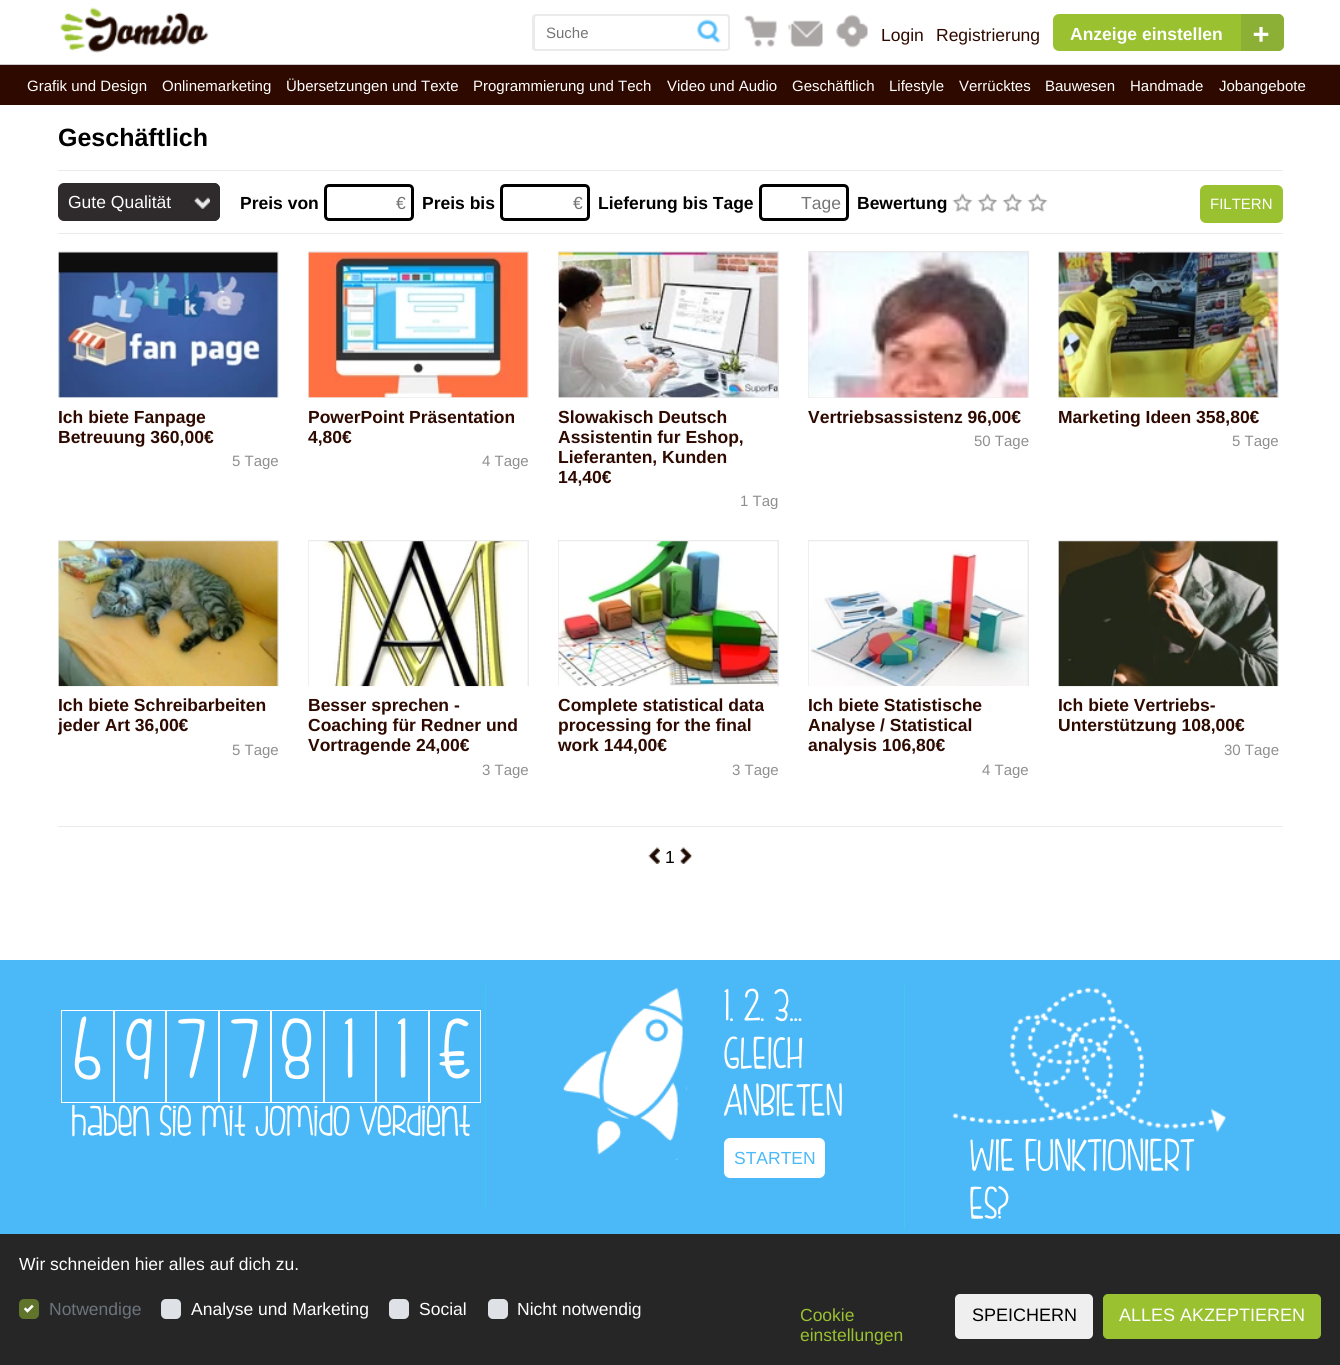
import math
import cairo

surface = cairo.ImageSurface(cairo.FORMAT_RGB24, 1340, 1365)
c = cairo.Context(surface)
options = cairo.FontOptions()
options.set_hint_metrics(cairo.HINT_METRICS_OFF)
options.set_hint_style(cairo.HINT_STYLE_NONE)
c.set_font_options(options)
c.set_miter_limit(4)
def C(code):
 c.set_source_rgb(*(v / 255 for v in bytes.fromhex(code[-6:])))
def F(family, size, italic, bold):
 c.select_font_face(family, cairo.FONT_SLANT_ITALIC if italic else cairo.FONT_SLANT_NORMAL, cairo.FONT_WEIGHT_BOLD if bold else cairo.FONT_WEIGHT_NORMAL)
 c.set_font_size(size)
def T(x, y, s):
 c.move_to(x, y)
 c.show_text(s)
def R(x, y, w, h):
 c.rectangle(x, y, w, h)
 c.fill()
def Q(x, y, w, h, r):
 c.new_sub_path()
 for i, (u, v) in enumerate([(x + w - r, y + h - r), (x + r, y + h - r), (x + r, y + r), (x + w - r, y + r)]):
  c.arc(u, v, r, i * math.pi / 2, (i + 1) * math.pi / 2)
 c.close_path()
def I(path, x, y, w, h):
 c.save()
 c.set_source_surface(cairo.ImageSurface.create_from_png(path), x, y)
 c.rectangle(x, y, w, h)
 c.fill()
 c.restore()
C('ffffff')
c.paint()
C('cccccc')
R(0,64,1340,1)
I('1.png',60,7,149,46)
C('ebebeb')
c.set_fill_rule(cairo.FILL_RULE_EVEN_ODD)
c.new_path()
c.move_to(536,14)
c.line_to(690,14)
c.line_to(690,51)
c.line_to(536,51)
c.curve_to(534,51,532,50,532,48)
c.line_to(532,18)
c.curve_to(532,15,534,14,536,14)
c.close_path()
c.move_to(536,16)
c.line_to(690,16)
c.line_to(690,49)
c.line_to(536,49)
c.curve_to(536,49,535,48,535,48)
c.line_to(535,18)
c.curve_to(535,17,536,16,536,16)
c.close_path()
c.fill()
F('Liberation Sans',15,0,0)
C('757575')
T(546,38,'Suche')
C('ebebeb')
c.new_path()
c.move_to(690,14)
c.line_to(726,14)
c.curve_to(728,14,730,15,730,18)
c.line_to(730,48)
c.curve_to(730,50,728,51,726,51)
c.line_to(690,51)
c.close_path()
c.move_to(690,16)
c.line_to(726,16)
c.curve_to(727,16,728,17,728,18)
c.line_to(728,48)
c.curve_to(728,48,727,49,726,49)
c.line_to(690,49)
c.close_path()
c.fill()
I('2.png',697,19,24,24)
I('3.png',744,15,33,32)
I('4.png',788,20,35,27)
I('5.png',835,14,33,34)
F('Liberation Sans',17.5,0,0)
C('2d0900')
T(881,41,'Login')
T(936,41,'Registrierung')
C('9ac130')
Q(1053,14,231,37,6)
c.fill()
F('Liberation Sans',17.5,0,1)
C('ffffff')
T(1070,40,'Anzeige einstellen')
C('8cb036')
c.new_path()
c.move_to(1241,14)
c.line_to(1278,14)
c.curve_to(1281.5,14,1284,16.5,1284,20)
c.line_to(1284,45)
c.curve_to(1284,48.5,1281.5,51,1278,51)
c.line_to(1241,51)
c.close_path()
c.fill()
F('Liberation Sans',29,1,1)
C('ffffff')
T(1252,44,'+')
C('2d0900')
R(0,65,1340,40)
F('Liberation Sans',15,0,0)
C('ffffff')
T(27,91,'Grafik und Design')
T(162,91,'Onlinemarketing')
T(286,91,'Übersetzungen und Texte')
T(473,91,'Programmierung und Tech')
T(667,91,'Video und Audio')
T(792,91,'Geschäftlich')
T(889,91,'Lifestyle')
T(959,91,'Verrücktes')
T(1045,91,'Bauwesen')
T(1130,91,'Handmade')
T(1219,91,'Jobangebote')
F('Liberation Sans',25,0,1)
C('000000')
T(58,146,'Geschäftlich')
C('ebebeb')
R(58,170,1225,1)
R(58,233,1225,1)
C('2f2b2c')
Q(58,183,162,38,6)
c.fill()
F('Liberation Sans',17.5,0,0)
C('ffffff')
T(68,208,'Gute Qualität')
C('2f2b2c')
Q(181,183,39,38,6)
c.fill()
I('6.png',191,197,19,12)
F('Liberation Sans',17.5,0,1)
C('000000')
T(240,209,'Preis von')
Q(325.5,185.5,87,34,3.5)
c.set_line_width(3)
c.stroke()
F('Liberation Sans',17.5,0,0)
C('757575')
T(396,209,'€')
F('Liberation Sans',17.5,0,1)
C('000000')
T(422,209,'Preis bis')
Q(501.5,185.5,87,34,3.5)
c.stroke()
F('Liberation Sans',17.5,0,0)
C('757575')
T(573,209,'€')
F('Liberation Sans',17.5,0,1)
C('000000')
T(598,209,'Lieferung bis Tage')
Q(760.5,185.5,87,34,3.5)
c.stroke()
F('Liberation Sans',17.5,0,0)
C('757575')
T(801,209,'Tage')
F('Liberation Sans',17.5,0,1)
C('000000')
T(857,209,'Bewertung')
I('7.png',952,193,21,19)
I('7.png',977,193,21,19)
I('7.png',1002,193,21,19)
I('8.png',1027,193,21,19)
C('9ac130')
Q(1200,185,83,38,6)
c.fill()
F('Liberation Sans',15,0,0)
C('ffffff')
T(1210,209,'FILTERN')
C('ebebeb')
R(58,251,221,147)
I('9.png',58,252,220,146)
F('Liberation Sans',17.5,0,1)
C('2d0900')
T(58,423,'Ich biete Fanpage')
T(58,443,'Betreuung 360,00€')
F('Liberation Sans',15,0,0)
C('8f8f8f')
T(232,466,'5 Tage')
C('ebebeb')
R(308,251,221,147)
I('10.png',308,252,220,146)
F('Liberation Sans',17.5,0,1)
C('2d0900')
T(308,423,'PowerPoint Präsentation')
c.save()
c.set_fill_rule(cairo.FILL_RULE_WINDING)
c.rectangle(308,251,221,220)
c.clip()
T(308,443,'4,80€')
c.restore()
F('Liberation Sans',15,0,0)
C('8f8f8f')
T(482,466,'4 Tage')
C('ebebeb')
R(558,251,221,147)
I('11.png',558,252,220,146)
F('Liberation Sans',17.5,0,1)
C('2d0900')
T(558,423,'Slowakisch Deutsch')
T(558,443,'Assistentin fur Eshop,')
T(558,463,'Lieferanten, Kunden')
T(558,483,'14,40€')
F('Liberation Sans',15,0,0)
C('8f8f8f')
T(740,506,'1 Tag')
C('ebebeb')
R(808,251,221,147)
I('12.png',808,252,220,146)
F('Liberation Sans',17.5,0,1)
C('2d0900')
T(808,423,'Vertriebsassistenz 96,00€')
F('Liberation Sans',15,0,0)
C('8f8f8f')
T(974,446,'50 Tage')
C('ebebeb')
R(1058,251,221,147)
I('13.png',1058,252,220,146)
F('Liberation Sans',17.5,0,1)
C('2d0900')
T(1058,423,'Marketing Ideen 358,80€')
F('Liberation Sans',15,0,0)
C('8f8f8f')
T(1232,446,'5 Tage')
C('ebebeb')
R(58,540,221,146)
I('14.png',58,541,220,146)
F('Liberation Sans',17.5,0,1)
C('2d0900')
T(58,711,'Ich biete Schreibarbeiten')
c.save()
c.set_fill_rule(cairo.FILL_RULE_WINDING)
c.rectangle(58,540,221,220)
c.clip()
T(58,731,'jeder Art 36,00€')
c.restore()
F('Liberation Sans',15,0,0)
C('8f8f8f')
T(232,755,'5 Tage')
C('ebebeb')
R(308,540,221,146)
I('15.png',308,541,220,146)
F('Liberation Sans',17.5,0,1)
C('2d0900')
T(308,711,'Besser sprechen -')
T(308,731,'Coaching für Redner und')
T(308,751,'Vortragende 24,00€')
F('Liberation Sans',15,0,0)
C('8f8f8f')
T(482,775,'3 Tage')
C('ebebeb')
R(558,540,221,146)
I('16.png',558,541,220,146)
F('Liberation Sans',17.5,0,1)
C('2d0900')
T(558,711,'Complete statistical data')
T(558,731,'processing for the final')
c.save()
c.set_fill_rule(cairo.FILL_RULE_WINDING)
c.rectangle(558,540,221,240)
c.clip()
T(558,751,'work 144,00€')
c.restore()
F('Liberation Sans',15,0,0)
C('8f8f8f')
T(732,775,'3 Tage')
C('ebebeb')
R(808,540,221,146)
I('17.png',808,541,220,146)
F('Liberation Sans',17.5,0,1)
C('2d0900')
T(808,711,'Ich biete Statistische')
T(808,731,'Analyse / Statistical')
T(808,751,'analysis 106,80€')
F('Liberation Sans',15,0,0)
C('8f8f8f')
T(982,775,'4 Tage')
C('ebebeb')
R(1058,540,221,146)
I('18.png',1058,541,220,146)
F('Liberation Sans',17.5,0,1)
C('2d0900')
T(1058,711,'Ich biete Vertriebs-')
T(1058,731,'Unterstützung 108,00€')
F('Liberation Sans',15,0,0)
C('8f8f8f')
T(1224,755,'30 Tage')
C('ebebeb')
R(58,826,1225,1)
I('19.png',648,847,12,17)
F('Liberation Sans',17.5,0,0)
C('000000')
T(665,863,'1')
I('20.png',680,847,12,17)
C('262626')
R(0,1234,1340,131)
C('ffffff')
T(19,1270,'Wir schneiden hier alles auf dich zu.')
C('60742b')
Q(19,1299,20,20,5)
c.fill()
C('6c757d')
T(49,1315,'Notwendige')
I('21.png',24,1304,10,9)
C('dee2e6')
Q(161,1299,20,20,5)
c.fill()
C('ffffff')
T(191,1315,'Analyse und Marketing')
C('dee2e6')
Q(389,1299,20,20,5)
c.fill()
C('ffffff')
T(419,1315,'Social')
C('dee2e6')
Q(488,1299,20,20,5)
c.fill()
C('ffffff')
T(517,1315,'Nicht notwendig')
C('9ac130')
T(800,1321,'Cookie')
T(800,1341,'einstellungen')
C('efefef')
Q(955,1294,138,45,5)
c.fill()
F('Liberation Sans',18,0,0)
C('000000')
T(972,1321,'SPEICHERN')
C('9ac130')
Q(1103.5,1294.5,217,44,4.5)
c.fill_preserve()
c.set_line_width(1)
c.stroke()
C('ffffff')
T(1119,1321,'ALLES AKZEPTIEREN')
C('4bb9f7')
R(0,960,1340,274)
C('40c8ed')
R(485,985,1,225)
c.rectangle(61.5,1010.5,52,92)
C('ffffff')
c.stroke()
F('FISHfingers',90,0,0)
T(74,1079,'6')
c.rectangle(114.5,1010.5,51,92)
c.stroke()
T(126,1079,'9')
c.rectangle(166.5,1010.5,52,92)
c.stroke()
T(178,1079,'7')
c.rectangle(219.5,1010.5,51,92)
c.stroke()
T(231,1079,'7')
c.rectangle(271.5,1010.5,52,92)
c.stroke()
T(282,1079,'8')
c.rectangle(324.5,1010.5,51,92)
c.stroke()
T(344,1079,'1')
c.rectangle(376.5,1010.5,52,92)
c.stroke()
T(397,1079,'1')
c.rectangle(429.5,1010.5,51,92)
c.stroke()
T(439,1079,'€')
F('FISHfingers',45,0,0)
T(72,1136,'haben Sie mit Jomido verdient')
I('22.png',563,987,124,173)
F('FISHfingers',47.5,0,0)
T(724,1021,'1. 2. 3...')
T(724,1069,'GLEICH')
T(724,1116,'ANBIETEN')
Q(724,1138,101,40,6)
c.fill()
F('Liberation Sans',17.5,0,0)
C('4bb9f7')
T(734,1164,'STARTEN')
C('40c8ed')
R(904,985,1,245)
I('23.png',952,987,274,146)
F('FISHfingers',47.5,0,0)
C('ffffff')
T(970,1171,'WIE FUNKTIONIERT')
T(970,1219,'ES?')
surface.write_to_png('o.png')
